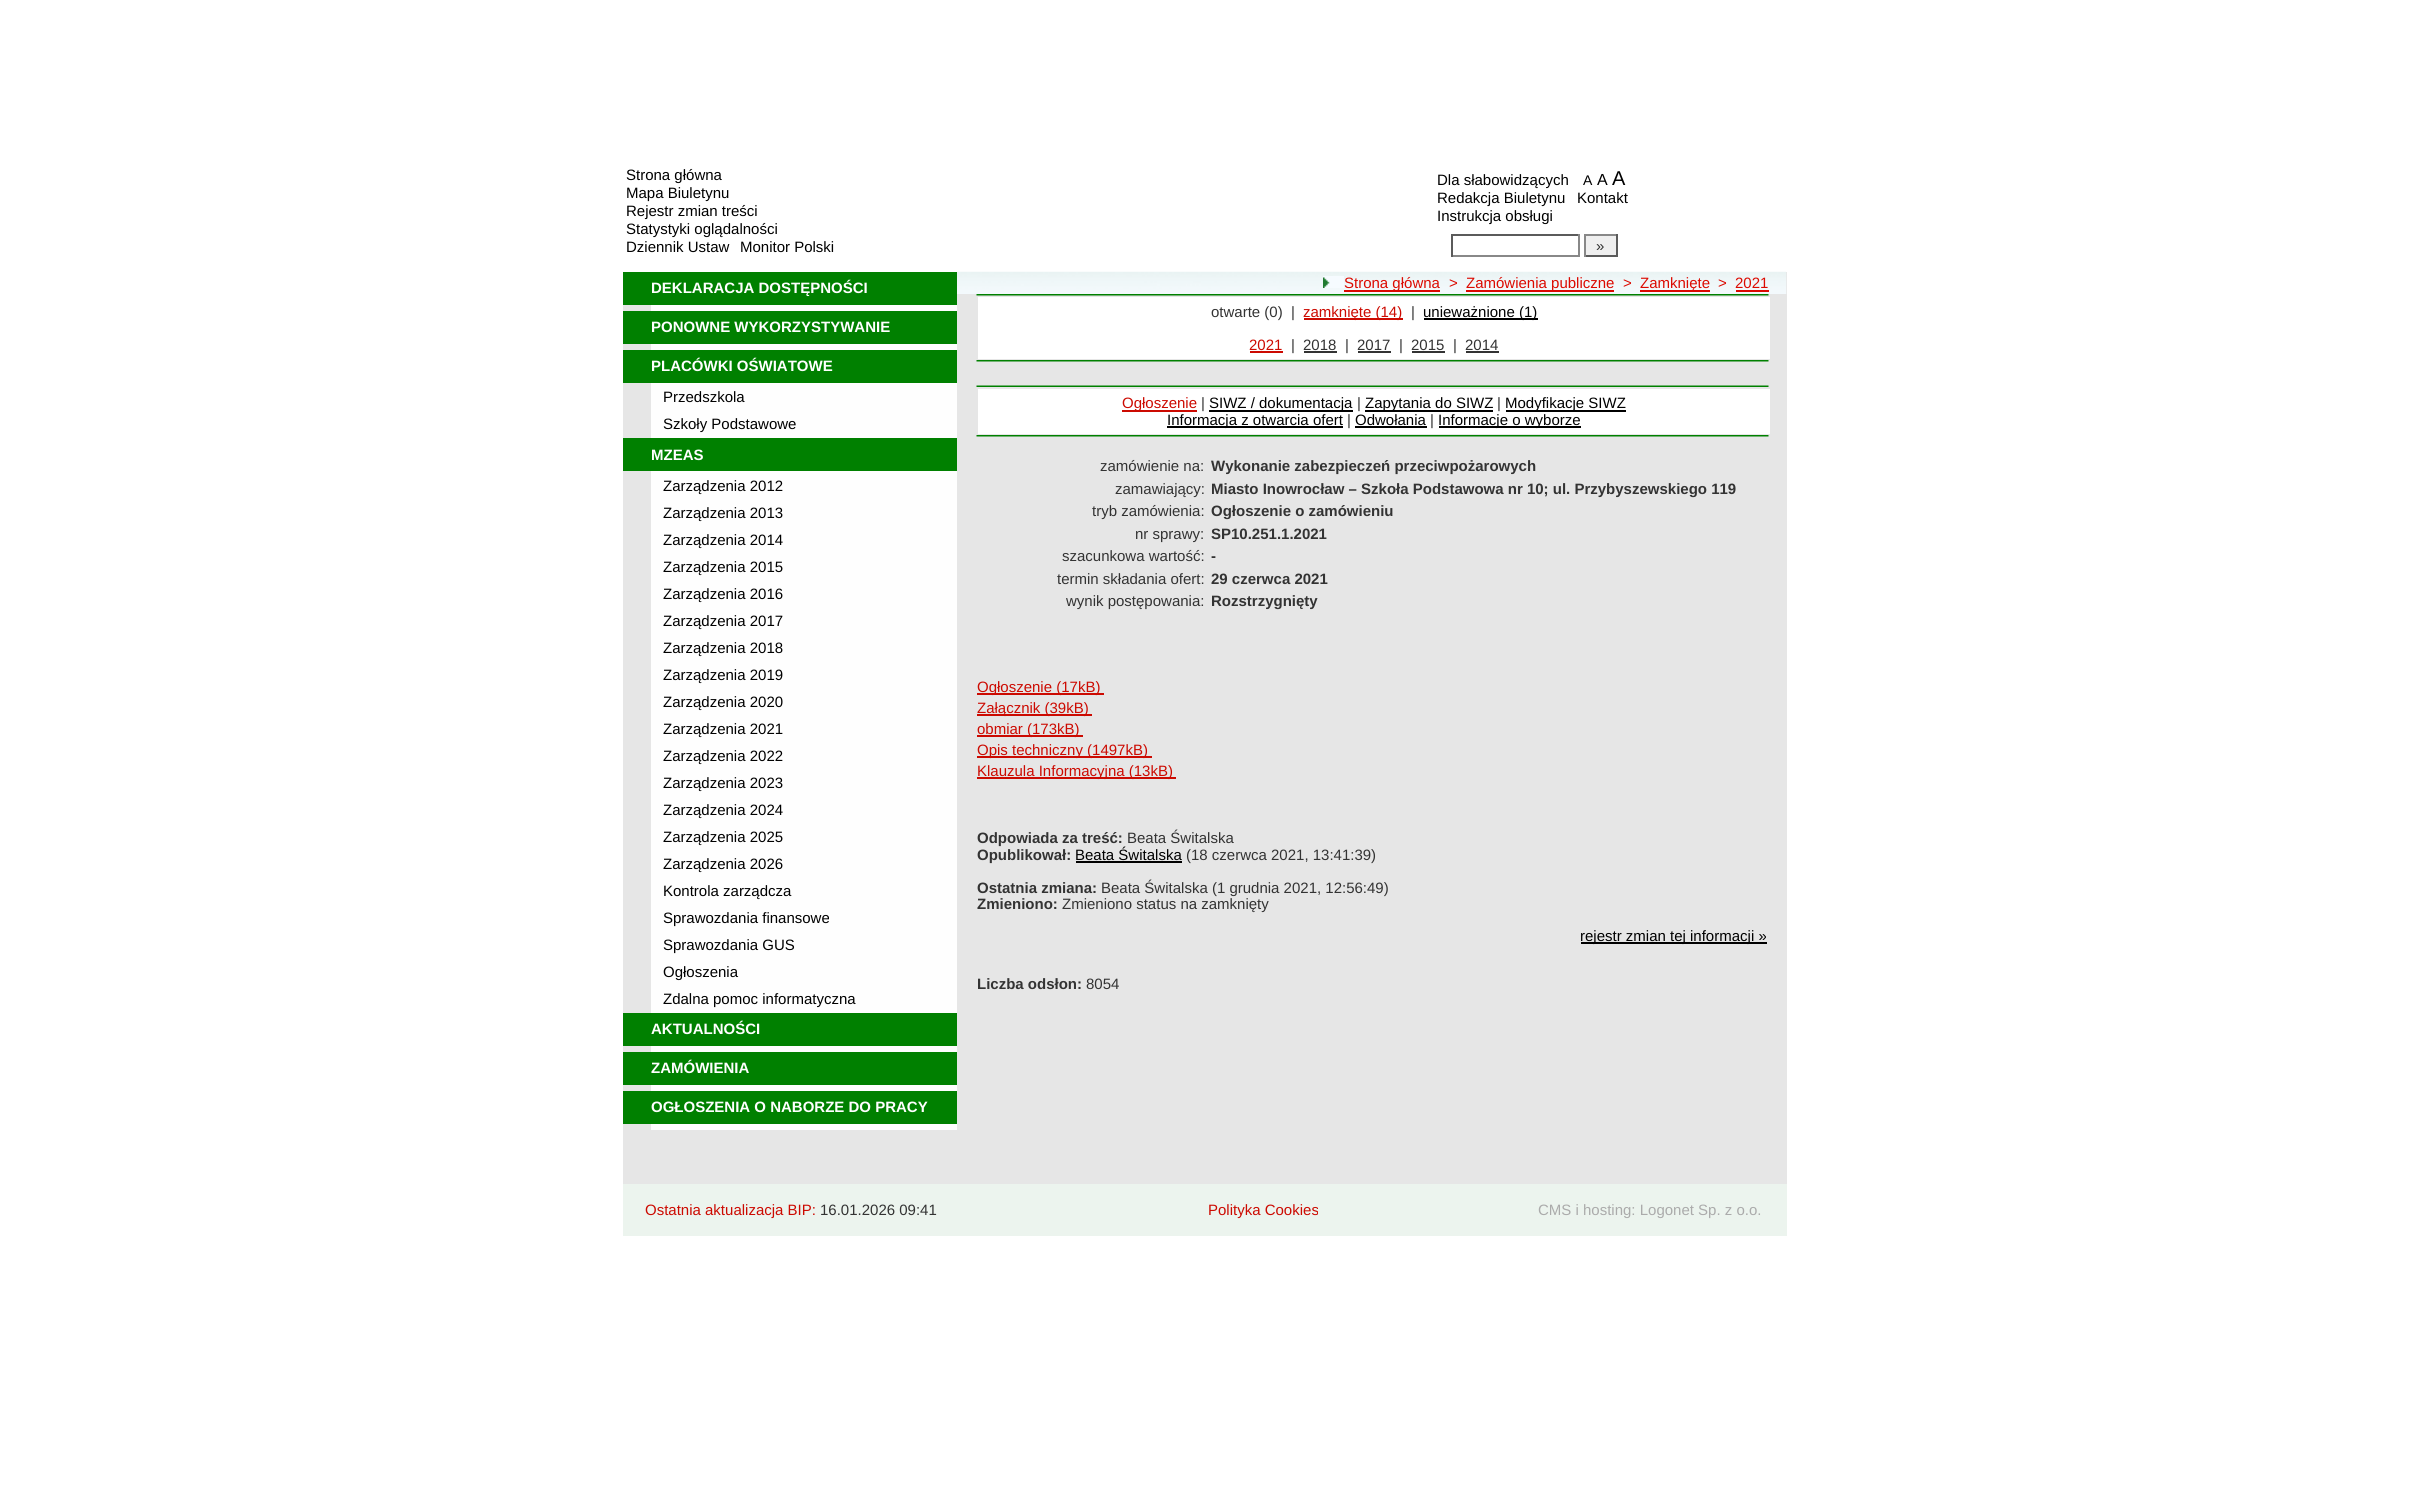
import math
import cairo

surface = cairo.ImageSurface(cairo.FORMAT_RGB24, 2409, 1495)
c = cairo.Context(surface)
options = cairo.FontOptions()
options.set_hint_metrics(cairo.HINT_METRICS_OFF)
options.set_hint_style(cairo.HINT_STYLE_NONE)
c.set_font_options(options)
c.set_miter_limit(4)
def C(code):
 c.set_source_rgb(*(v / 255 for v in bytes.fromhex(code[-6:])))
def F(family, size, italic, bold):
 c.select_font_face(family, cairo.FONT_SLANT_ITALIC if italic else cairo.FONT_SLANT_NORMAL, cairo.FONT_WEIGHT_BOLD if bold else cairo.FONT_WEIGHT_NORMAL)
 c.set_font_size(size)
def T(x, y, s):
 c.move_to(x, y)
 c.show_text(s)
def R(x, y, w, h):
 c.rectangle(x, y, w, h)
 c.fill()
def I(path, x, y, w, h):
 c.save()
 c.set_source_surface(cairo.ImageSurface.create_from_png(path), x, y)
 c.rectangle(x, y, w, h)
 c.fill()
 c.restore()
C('ffffff')
c.paint()
F('Liberation Sans',15,0,0)
C('000000')
T(626,180,'Strona główna')
T(626,198,'Mapa Biuletynu')
T(626,216,'Rejestr zmian treści')
T(626,234,'Statystyki oglądalności')
T(626,252,'Dziennik Ustaw')
T(740,252,'Monitor Polski')
T(1437,185,'Dla słabowidzących')
F('Liberation Sans',14,0,0)
T(1583,185,'A')
F('Liberation Sans',16,0,0)
T(1597,185,'A')
F('Liberation Sans',20,0,0)
T(1612,185,'A')
F('Liberation Sans',15,0,0)
T(1437,203,'Redakcja Biuletynu')
T(1577,203,'Kontakt')
T(1437,221,'Instrukcja obsługi')
C('5b5b5b')
R(1451,234,129,2)
C('888888')
R(1578,234,2,23)
R(1451,255,129,2)
C('5b5b5b')
R(1451,234,2,23)
C('efefef')
R(1586,236,30,19)
C('888888')
R(1584,234,33,2)
C('5b5b5b')
R(1616,234,2,23)
R(1584,255,33,2)
C('888888')
R(1584,234,2,23)
C('333333')
T(1596,251,'»')
C('e6e6e6')
R(623,272,1164,912)
C('008000')
R(623,272,334,33)
F('Liberation Sans',15,0,1)
C('ffffff')
T(651,293,'DEKLARACJA DOSTĘPNOŚCI')
C('fefefe')
R(651,305,306,6)
C('008000')
R(623,311,334,33)
C('ffffff')
T(651,332,'PONOWNE WYKORZYSTYWANIE')
C('fefefe')
R(651,344,306,6)
C('008000')
R(623,350,334,33)
C('ffffff')
T(651,371,'PLACÓWKI OŚWIATOWE')
C('fefefe')
R(651,383,306,55)
F('Liberation Sans',15,0,0)
C('000000')
T(663,402,'Przedszkola')
T(663,429,'Szkoły Podstawowe')
C('008000')
R(623,438,334,33)
F('Liberation Sans',15,0,1)
C('ffffff')
T(651,460,'MZEAS')
C('fefefe')
R(651,471,306,542)
F('Liberation Sans',15,0,0)
C('000000')
T(663,491,'Zarządzenia 2012')
T(663,518,'Zarządzenia 2013')
T(663,545,'Zarządzenia 2014')
T(663,572,'Zarządzenia 2015')
T(663,599,'Zarządzenia 2016')
T(663,626,'Zarządzenia 2017')
T(663,653,'Zarządzenia 2018')
T(663,680,'Zarządzenia 2019')
T(663,707,'Zarządzenia 2020')
T(663,734,'Zarządzenia 2021')
T(663,761,'Zarządzenia 2022')
T(663,788,'Zarządzenia 2023')
T(663,815,'Zarządzenia 2024')
T(663,842,'Zarządzenia 2025')
T(663,869,'Zarządzenia 2026')
T(663,896,'Kontrola zarządcza')
T(663,923,'Sprawozdania finansowe')
T(663,950,'Sprawozdania GUS')
T(663,977,'Ogłoszenia')
T(663,1004,'Zdalna pomoc informatyczna')
C('008000')
R(623,1013,334,33)
F('Liberation Sans',15,0,1)
C('ffffff')
T(651,1034,'AKTUALNOŚCI')
C('fefefe')
R(651,1046,306,6)
C('008000')
R(623,1052,334,33)
C('ffffff')
T(651,1073,'ZAMÓWIENIA')
C('fefefe')
R(651,1085,306,6)
C('008000')
R(623,1091,334,33)
C('ffffff')
T(651,1112,'OGŁOSZENIA O NABORZE DO PRACY')
C('fefefe')
R(651,1124,306,6)
I('1.png',957,271,830,23)
I('2.png',1323,276,21,12)
C('dc0a01')
R(1344,290,96,2)
F('Liberation Sans',15,0,0)
T(1344,288,'Strona główna')
T(1449,288,'>')
R(1466,290,148,2)
T(1466,288,'Zamówienia publiczne')
T(1623,288,'>')
R(1640,290,70,2)
T(1640,288,'Zamknięte')
T(1718,288,'>')
T(1735,288,'2021')
R(1736,290,33,2)
I('3.png',976,294,793,2)
C('ffffff')
R(978,297,792,62)
C('333333')
T(1211,317,'otwarte (0)')
T(1291,317,'|')
C('cc0a01')
R(1304,318,99,2)
T(1303,317,'zamknięte (14)')
C('333333')
T(1411,317,'|')
C('000000')
R(1424,318,114,2)
T(1423,317,'unieważnione (1)')
C('cc0a01')
T(1249,350,'2021')
R(1250,351,33,2)
C('333333')
T(1291,350,'|')
T(1303,350,'2018')
R(1304,351,33,2)
T(1345,350,'|')
T(1357,350,'2017')
R(1358,351,33,2)
T(1399,350,'|')
T(1411,350,'2015')
R(1412,351,33,2)
T(1453,350,'|')
T(1465,350,'2014')
R(1466,351,33,2)
I('3.png',976,360,793,2)
I('4.png',976,385,793,2)
C('ffffff')
R(978,389,792,45)
C('cc0a01')
R(1122,410,75,2)
T(1122,408,'Ogłoszenie')
C('333333')
T(1201,408,'|')
C('000000')
R(1209,410,144,2)
T(1209,408,'SIWZ / dokumentacja')
C('333333')
T(1357,408,'|')
C('000000')
R(1365,410,128,2)
T(1365,408,'Zapytania do SIWZ')
C('333333')
T(1497,408,'|')
C('000000')
R(1506,410,120,2)
T(1505,408,'Modyfikacje SIWZ')
R(1167,426,176,2)
T(1167,425,'Informacja z otwarcia ofert')
C('333333')
T(1347,425,'|')
C('000000')
T(1355,425,'Odwołania')
R(1355,426,72,2)
C('333333')
T(1430,425,'|')
C('000000')
R(1439,426,142,2)
T(1438,425,'Informacje o wyborze')
I('3.png',976,435,793,2)
C('333333')
T(1100,471,'zamówienie na:')
F('Liberation Sans',15,0,1)
T(1211,471,'Wykonanie zabezpieczeń przeciwpożarowych')
F('Liberation Sans',15,0,0)
T(1115,494,'zamawiający:')
F('Liberation Sans',15,0,1)
T(1211,494,'Miasto Inowrocław – Szkoła Podstawowa nr 10; ul. Przybyszewskiego 119')
F('Liberation Sans',15,0,0)
T(1092,516,'tryb zamówienia:')
F('Liberation Sans',15,0,1)
T(1211,516,'Ogłoszenie o zamówieniu')
F('Liberation Sans',15,0,0)
T(1135,539,'nr sprawy:')
F('Liberation Sans',15,0,1)
T(1211,539,'SP10.251.1.2021')
F('Liberation Sans',15,0,0)
T(1062,561,'szacunkowa wartość:')
F('Liberation Sans',15,0,1)
T(1211,561,'-')
F('Liberation Sans',15,0,0)
T(1057,584,'termin składania ofert:')
F('Liberation Sans',15,0,1)
T(1211,584,'29 czerwca 2021')
F('Liberation Sans',15,0,0)
T(1066,606,'wynik postępowania:')
F('Liberation Sans',15,0,1)
T(1211,606,'Rozstrzygnięty')
C('cc0a01')
R(977,693,127,2)
F('Liberation Sans',15,0,0)
T(977,692,'Ogłoszenie (17kB)')
R(977,714,115,2)
T(977,713,'Załącznik (39kB)')
R(977,735,106,2)
T(977,734,'obmiar (173kB)')
R(977,756,175,2)
T(977,755,'Opis techniczny (1497kB)')
R(977,777,199,2)
T(977,776,'Klauzula Informacyjna (13kB)')
F('Liberation Sans',15,0,1)
C('333333')
T(977,843,'Odpowiada za treść:')
F('Liberation Sans',15,0,0)
T(1127,843,'Beata Świtalska')
F('Liberation Sans',15,0,1)
T(977,860,'Opublikował:')
F('Liberation Sans',15,0,0)
C('000000')
T(1075,860,'Beata Świtalska')
R(1076,861,106,2)
C('333333')
T(1186,860,'(18 czerwca 2021, 13:41:39)')
F('Liberation Sans',15,0,1)
T(977,893,'Ostatnia zmiana:')
F('Liberation Sans',15,0,0)
T(1101,893,'Beata Świtalska (1 grudnia 2021, 12:56:49)')
F('Liberation Sans',15,0,1)
T(977,909,'Zmieniono:')
F('Liberation Sans',15,0,0)
T(1062,909,'Zmieniono status na zamknięty')
C('000000')
R(1581,942,186,2)
T(1580,941,'rejestr zmian tej informacji »')
F('Liberation Sans',15,0,1)
C('333333')
T(977,989,'Liczba odsłon:')
F('Liberation Sans',15,0,0)
T(1086,989,'8054')
C('ecf4ee')
R(623,1184,1164,52)
C('cc0a01')
T(645,1215,'Ostatnia aktualizacja BIP:')
C('333333')
T(820,1215,'16.01.2026 09:41')
C('cc0a01')
T(1208,1215,'Polityka Cookies')
C('ababab')
T(1538,1215,'CMS i hosting: Logonet Sp. z o.o.')
surface.write_to_png('o.png')
